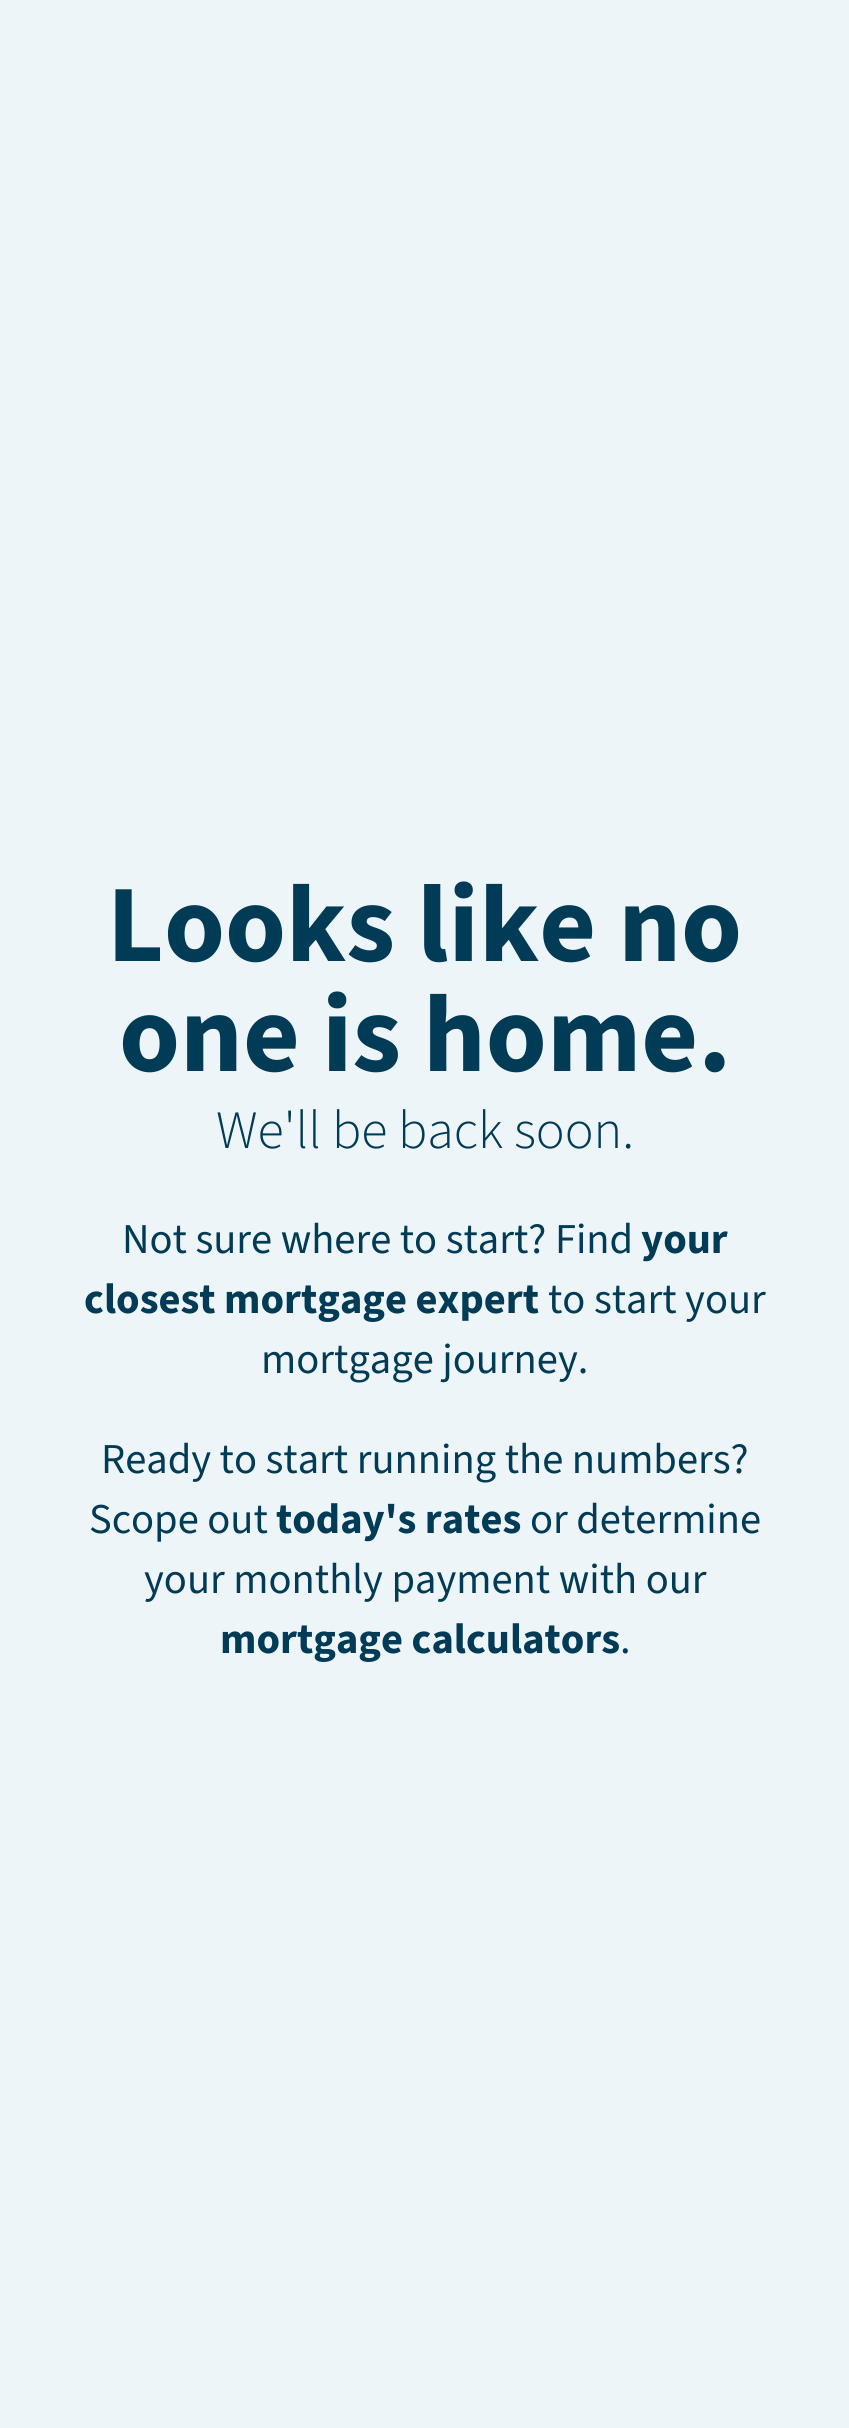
import math
import cairo

surface = cairo.ImageSurface(cairo.FORMAT_RGB24, 849, 2428)
c = cairo.Context(surface)
options = cairo.FontOptions()
options.set_hint_metrics(cairo.HINT_METRICS_OFF)
options.set_hint_style(cairo.HINT_STYLE_NONE)
c.set_font_options(options)
c.set_miter_limit(4)
def C(code):
 c.set_source_rgb(*(v / 255 for v in bytes.fromhex(code[-6:])))
def F(family, size, italic, bold):
 c.select_font_face(family, cairo.FONT_SLANT_ITALIC if italic else cairo.FONT_SLANT_NORMAL, cairo.FONT_WEIGHT_BOLD if bold else cairo.FONT_WEIGHT_NORMAL)
 c.set_font_size(size)
def T(x, y, s):
 c.move_to(x, y)
 c.show_text(s)
C('eef5f9')
c.paint()
F('Source Sans 3',110,0,1)
C('023b56')
T(107,961,'Looks like no')
T(119,1071,'one is home.')
F('Source Sans 3 Light',54,0,0)
T(216,1148,'We\'ll be back soon.')
F('Source Sans 3',42.5,0,0)
T(122,1253,'Not sure where to start? Find')
F('Source Sans 3',42.5,0,1)
T(641,1253,'your')
T(84,1313,'closest mortgage expert')
F('Source Sans 3',42.5,0,0)
T(548,1313,'to start your')
T(261,1373,'mortgage journey.')
T(101,1473,'Ready to start running the numbers?')
T(89,1533,'Scope out')
F('Source Sans 3',42.5,0,1)
T(276,1533,'today\'s rates')
F('Source Sans 3',42.5,0,0)
T(530,1533,'or determine')
T(144,1593,'your monthly payment with our')
F('Source Sans 3',42.5,0,1)
T(220,1653,'mortgage calculators')
F('Source Sans 3',42.5,0,0)
T(620,1653,'.')
surface.write_to_png('o.png')
